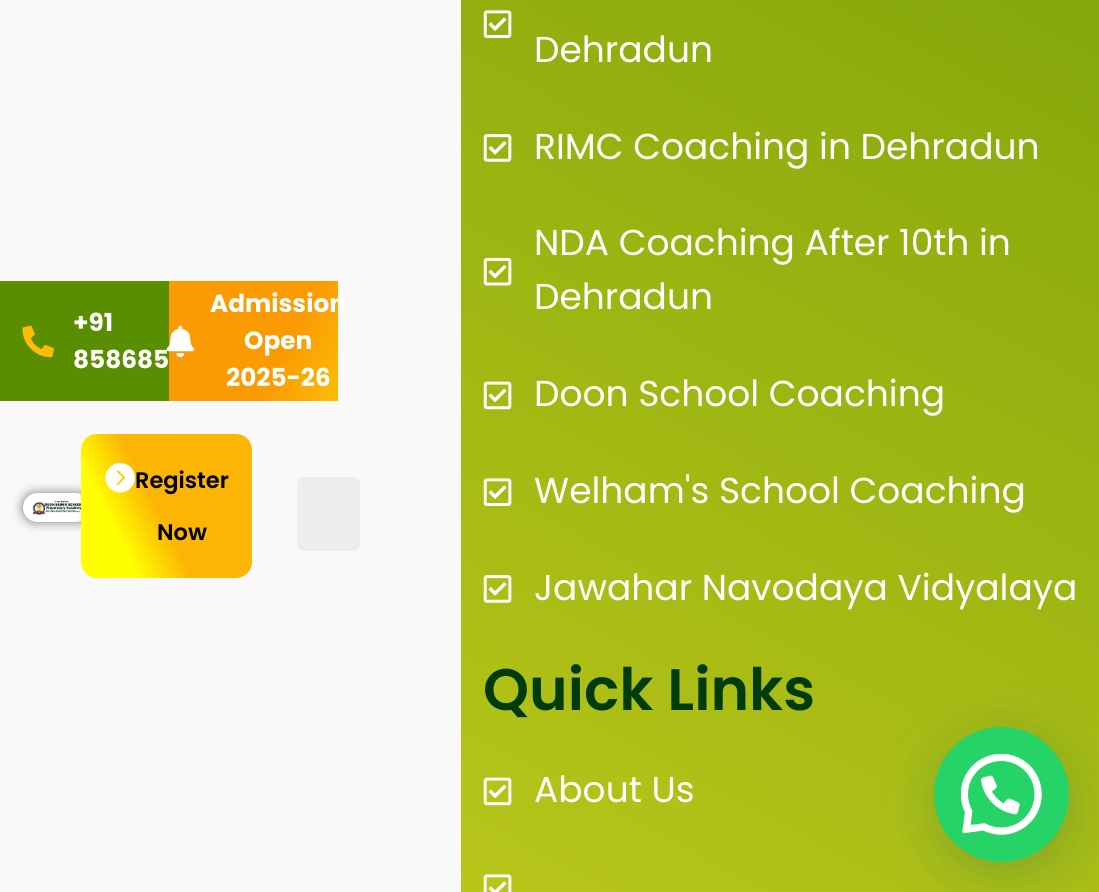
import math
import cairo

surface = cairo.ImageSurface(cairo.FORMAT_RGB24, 1099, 892)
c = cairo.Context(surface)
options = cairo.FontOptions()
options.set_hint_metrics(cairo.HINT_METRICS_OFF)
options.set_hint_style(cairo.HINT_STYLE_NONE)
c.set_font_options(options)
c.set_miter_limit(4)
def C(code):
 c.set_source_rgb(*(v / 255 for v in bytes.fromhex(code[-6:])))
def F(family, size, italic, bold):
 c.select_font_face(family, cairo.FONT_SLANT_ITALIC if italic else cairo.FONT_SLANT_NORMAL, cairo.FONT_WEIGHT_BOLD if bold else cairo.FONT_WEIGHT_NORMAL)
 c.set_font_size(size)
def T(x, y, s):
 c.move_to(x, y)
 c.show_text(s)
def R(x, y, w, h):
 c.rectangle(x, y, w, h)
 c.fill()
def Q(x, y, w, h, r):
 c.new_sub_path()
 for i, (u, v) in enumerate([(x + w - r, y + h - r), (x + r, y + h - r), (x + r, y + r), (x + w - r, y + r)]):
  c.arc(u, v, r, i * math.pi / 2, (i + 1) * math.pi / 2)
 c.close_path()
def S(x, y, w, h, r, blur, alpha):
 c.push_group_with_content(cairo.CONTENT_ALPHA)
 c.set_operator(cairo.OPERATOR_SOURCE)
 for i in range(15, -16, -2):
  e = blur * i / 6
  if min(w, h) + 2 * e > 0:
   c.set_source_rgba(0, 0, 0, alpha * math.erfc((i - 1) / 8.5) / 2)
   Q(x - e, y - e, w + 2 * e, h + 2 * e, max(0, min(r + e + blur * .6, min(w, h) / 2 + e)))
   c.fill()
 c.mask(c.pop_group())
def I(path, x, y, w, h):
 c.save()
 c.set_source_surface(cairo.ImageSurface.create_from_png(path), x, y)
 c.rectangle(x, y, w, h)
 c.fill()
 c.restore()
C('f9f9f9')
c.paint()
C('598e00')
R(0,281,169,120)
I('1.png',22,325,32,33)
F('Poppins',24.75,0,1)
C('ffffff')
T(73,331,'+91')
T(73,368,'858685')
gradient = cairo.LinearGradient(162,294,344,387)
gradient.add_color_stop_rgba(.67,0.984,0.608,0.016,1)
gradient.add_color_stop_rgba(1,0.984,0.737,0.016,1)
c.set_source(gradient)
R(169,281,169,120)
I('2.png',166,325,29,33)
C('ffffff')
T(210,312,'Admission')
T(244,349,'Open')
T(226,386,'2025-26')
C('000000')
S(23,493,67,29,14.5,5.5,.5)
Q(26.5,496.5,60,22,11)
C('ffffff')
c.set_line_width(7)
c.stroke()
I('3.png',30,500,51,15)
gradient = cairo.LinearGradient(264,457,69,556)
gradient.add_color_stop_rgba(.54,0.984,0.71,0.016,1)
gradient.add_color_stop_rgba(.76,1,1,0,1)
c.set_source(gradient)
Q(81,434,171,144,16)
c.fill()
I('4.png',105,462,30,31)
F('Poppins SemiBold',22.5,0,0)
C('000000')
T(135,488,'Register')
T(157,540,'Now')
C('ededed')
Q(297,477,63,74,7)
c.fill()
gradient = cairo.LinearGradient(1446,-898,115,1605)
gradient.add_color_stop_rgba(0,0.349,0.557,0,1)
gradient.add_color_stop_rgba(1,0.867,0.859,0.137,1)
c.set_source(gradient)
R(461,0,638,892)
I('5.png',483,10,29,28)
F('Poppins',36,0,0)
C('ffffff')
T(534,62,'Dehradun')
I('6.png',483,134,29,28)
T(534,159,'RIMC Coaching in Dehradun')
I('7.png',483,257,29,29)
T(534,255,'NDA Coaching After 10th in')
T(534,309,'Dehradun')
I('8.png',483,381,29,29)
T(534,406,'Doon School Coaching')
I('9.png',483,478,29,28)
T(534,503,'Welham\'s School Coaching')
I('10.png',483,575,29,28)
T(534,600,'Jawahar Navodaya Vidyalaya')
F('Poppins SemiBold',58.5,0,0)
C('003b0b')
T(483,710,'Quick Links')
I('11.png',483,777,29,29)
F('Poppins',36,0,0)
C('ffffff')
T(534,802,'About Us')
I('12.png',483,874,29,18)
C('075e54')
S(936,740,135,135,67.5,27,.24)
C('25d366')
c.arc(1001.5,794.5,67.5,0,2 * math.pi)
c.fill()
I('13.png',961,754,81,81)
surface.write_to_png('o.png')
